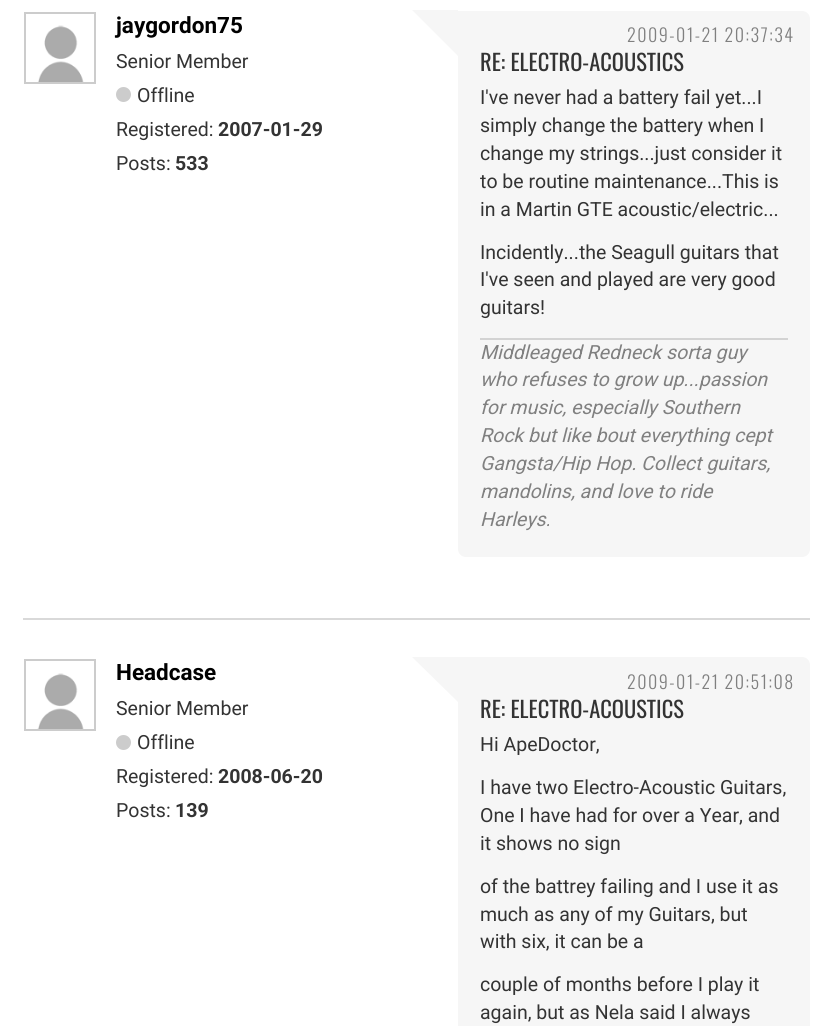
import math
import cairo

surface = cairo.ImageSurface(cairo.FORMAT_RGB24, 832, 1026)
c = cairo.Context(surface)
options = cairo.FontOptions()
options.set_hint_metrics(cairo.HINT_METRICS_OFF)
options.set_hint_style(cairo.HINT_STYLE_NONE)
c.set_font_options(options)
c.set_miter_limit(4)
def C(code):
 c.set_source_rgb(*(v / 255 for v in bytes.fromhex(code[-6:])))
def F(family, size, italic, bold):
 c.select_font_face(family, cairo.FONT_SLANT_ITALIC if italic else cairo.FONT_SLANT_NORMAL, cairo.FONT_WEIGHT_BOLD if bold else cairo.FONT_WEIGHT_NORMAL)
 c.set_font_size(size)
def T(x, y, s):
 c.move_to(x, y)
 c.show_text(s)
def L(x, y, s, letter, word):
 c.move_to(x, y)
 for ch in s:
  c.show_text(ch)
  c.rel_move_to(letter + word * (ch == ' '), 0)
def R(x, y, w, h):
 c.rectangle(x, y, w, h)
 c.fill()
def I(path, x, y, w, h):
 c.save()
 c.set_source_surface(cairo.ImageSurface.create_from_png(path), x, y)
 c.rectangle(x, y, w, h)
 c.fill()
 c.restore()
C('ffffff')
c.paint()
I('1.png',37,25,47,57)
c.rectangle(25,13,70,70)
C('cccccc')
c.stroke()
F('Roboto',22.5,0,1)
C('000000')
T(116,33,'jaygordon75')
F('Roboto',19.5,0,0)
C('333333')
T(116,68,'Senior Member')
C('cccccc')
c.new_path()
c.arc(123.5,94.5,7.5,0,2 * math.pi)
c.fill()
C('333333')
T(137,102,'Offline')
T(116,136,'Registered:')
F('Roboto',19.5,0,1)
T(218,136,'2007-01-29')
F('Roboto',19.5,0,0)
T(116,170,'Posts:')
F('Roboto',19.5,0,1)
T(175,170,'533')
C('f6f6f6')
c.new_path()
c.move_to(458,11)
c.line_to(802,11)
c.curve_to(806.5,11,810,14.5,810,19)
c.line_to(810,549)
c.curve_to(810,553.5,806.5,557,802,557)
c.line_to(466,557)
c.curve_to(461.5,557,458,553.5,458,549)
c.close_path()
c.fill()
c.new_path()
c.move_to(458,10)
c.line_to(458,56)
c.line_to(412,10)
c.close_path()
c.fill()
F('Oswald',22.5,0,0)
C('333333')
T(480,71,'RE: ELECTRO-ACOUSTICS')
F('Roboto',19.5,0,0)
T(480,104,'I\'ve never had a battery fail yet...I')
T(480,132,'simply change the battery when I')
T(480,160,'change my strings...just consider it')
T(480,188,'to be routine maintenance...This is')
T(480,216,'in a Martin GTE acoustic/electric...')
T(480,259,'Incidently...the Seagull guitars that')
T(480,286,'I\'ve seen and played are very good')
T(480,314,'guitars!')
C('d3d3d3')
R(480,338,308,2)
F('Roboto',19.5,1,0)
C('808080')
T(480,359,'Middleaged Redneck sorta guy')
T(480,386,'who refuses to grow up...passion')
T(480,414,'for music, especially Southern')
T(480,442,'Rock but like bout everything cept')
T(480,470,'Gangsta/Hip Hop. Collect guitars,')
T(480,498,'mandolins, and love to ride')
T(480,526,'Harleys.')
F('Oswald Light',18,0,0)
L(627,42,'2009-01-21 20:37:34',1.5,0)
I('2.png',37,673,47,56)
c.rectangle(25,660,70,70)
C('cccccc')
c.stroke()
F('Roboto',22.5,0,1)
C('000000')
T(116,680,'Headcase')
F('Roboto',19.5,0,0)
C('333333')
T(116,715,'Senior Member')
C('cccccc')
c.new_path()
c.arc(123.5,742.5,7.5,0,2 * math.pi)
c.fill()
C('333333')
T(137,749,'Offline')
T(116,783,'Registered:')
F('Roboto',19.5,0,1)
T(218,783,'2008-06-20')
F('Roboto',19.5,0,0)
T(116,817,'Posts:')
F('Roboto',19.5,0,1)
T(175,817,'139')
C('f6f6f6')
c.new_path()
c.move_to(458,657)
c.line_to(802,657)
c.curve_to(806.5,657,810,660.5,810,665)
c.line_to(810,1026)
c.curve_to(810,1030.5,806.5,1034,802,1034)
c.line_to(466,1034)
c.curve_to(461.5,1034,458,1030.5,458,1026)
c.close_path()
c.fill()
c.new_path()
c.move_to(458,657)
c.line_to(458,702)
c.line_to(412,657)
c.close_path()
c.fill()
F('Oswald',22.5,0,0)
C('333333')
T(480,718,'RE: ELECTRO-ACOUSTICS')
F('Roboto',19.5,0,0)
T(480,751,'Hi ApeDoctor,')
T(480,794,'I have two Electro-Acoustic Guitars,')
T(480,822,'One I have had for over a Year, and')
T(480,850,'it shows no sign')
T(480,893,'of the battrey failing and I use it as')
T(480,921,'much as any of my Guitars, but')
T(480,948,'with six, it can be a')
T(480,991,'couple of months before I play it')
T(480,1019,'again, but as Nela said I always')
C('d9d9d9')
R(23,618,787,2)
F('Oswald Light',18,0,0)
C('808080')
L(627,689,'2009-01-21 20:51:08',1.5,0)
surface.write_to_png('o.png')
